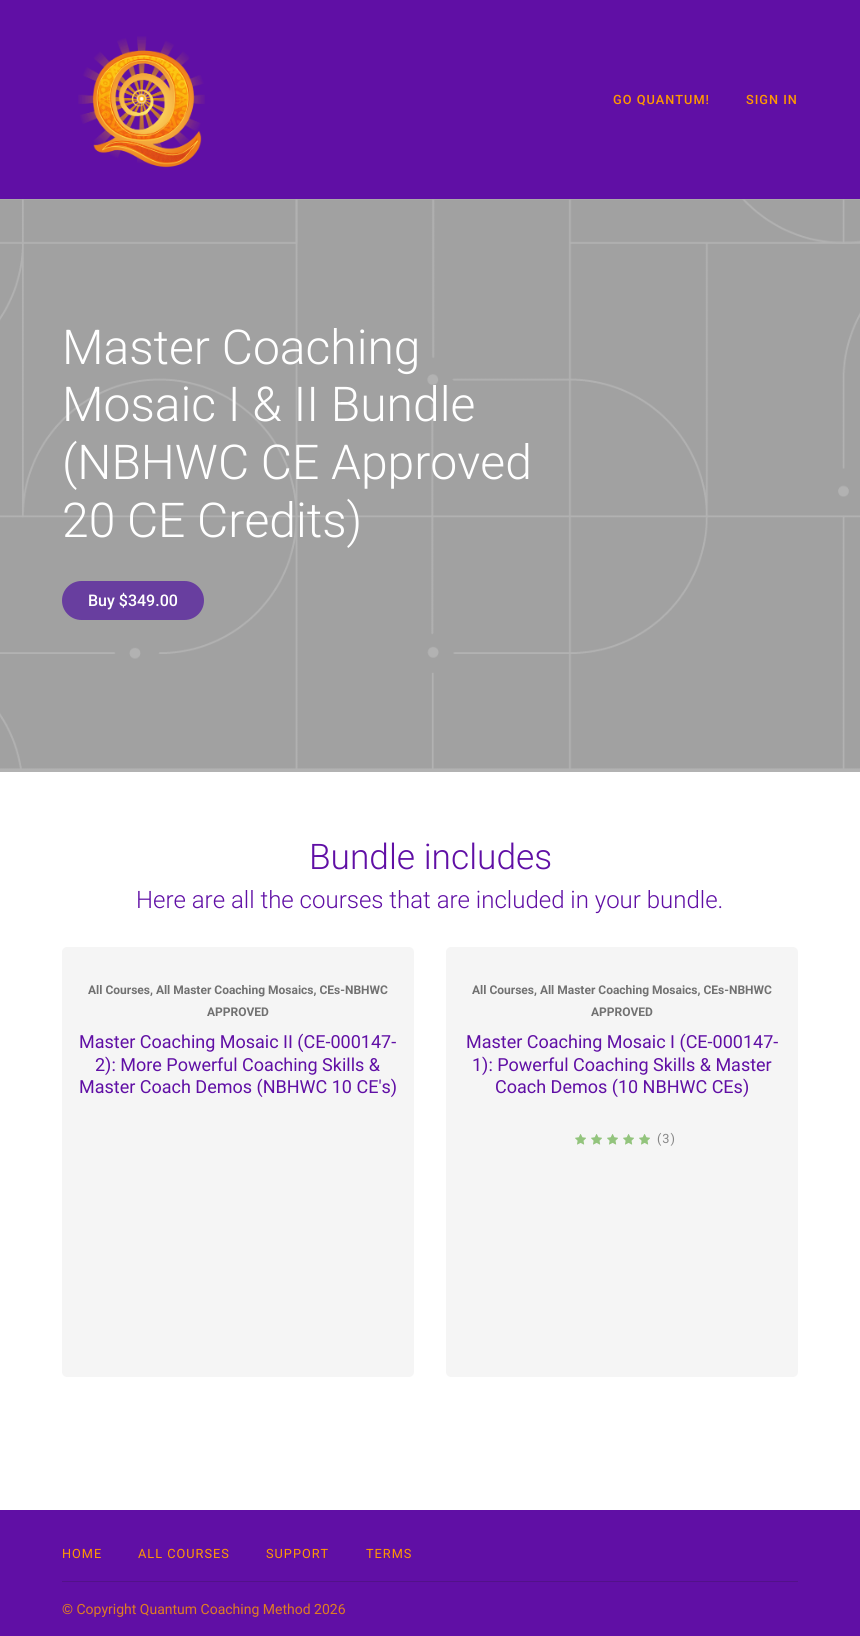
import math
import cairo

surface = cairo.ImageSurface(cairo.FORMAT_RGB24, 860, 1636)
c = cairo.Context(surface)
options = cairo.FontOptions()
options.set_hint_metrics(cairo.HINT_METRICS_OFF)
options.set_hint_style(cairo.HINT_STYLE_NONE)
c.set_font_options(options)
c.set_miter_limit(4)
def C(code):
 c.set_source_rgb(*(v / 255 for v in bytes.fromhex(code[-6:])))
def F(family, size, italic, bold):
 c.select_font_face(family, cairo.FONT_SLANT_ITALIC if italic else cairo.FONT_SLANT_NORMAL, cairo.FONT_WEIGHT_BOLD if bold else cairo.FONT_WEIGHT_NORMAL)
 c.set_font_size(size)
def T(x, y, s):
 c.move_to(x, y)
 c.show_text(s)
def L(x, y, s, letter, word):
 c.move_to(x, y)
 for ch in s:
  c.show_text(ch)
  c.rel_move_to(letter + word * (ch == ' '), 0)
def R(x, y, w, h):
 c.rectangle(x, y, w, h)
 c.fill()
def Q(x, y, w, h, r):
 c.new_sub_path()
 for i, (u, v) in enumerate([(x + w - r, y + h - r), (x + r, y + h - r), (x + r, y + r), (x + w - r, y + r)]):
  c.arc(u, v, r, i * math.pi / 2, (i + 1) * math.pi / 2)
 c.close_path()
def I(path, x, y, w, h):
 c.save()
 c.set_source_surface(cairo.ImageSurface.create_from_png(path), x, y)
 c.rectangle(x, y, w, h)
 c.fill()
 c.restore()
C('ffffff')
c.paint()
C('600fa5')
R(0,0,860,199)
I('1.png',78,36,127,132)
F('Roboto Medium',12.75,0,0)
C('ff9900')
L(613,104,'GO QUANTUM!',1,0)
L(746,104,'SIGN IN',1,0)
I('2.png',0,199,860,573)
F('Roboto Light',48,0,0)
C('ffffff')
T(62,364,'Master Coaching')
T(62,421,'Mosaic I & II Bundle')
T(62,479,'(NBHWC CE Approved')
T(62,537,'20 CE Credits)')
C('683e9f')
Q(63,582,140,37,18.5)
c.fill_preserve()
c.stroke()
F('Roboto Medium',16,0,0)
C('ffffff')
T(88,606,'Buy $349.00')
F('Roboto Light',35.25,0,0)
C('600fa5')
T(309,869,'Bundle includes')
F('Roboto Light',24,0,0)
T(136,908,'Here are all the courses that are included in your bundle.')
C('f5f5f5')
Q(62,947,352,430,5)
c.fill()
F('Roboto',12,0,1)
C('717171')
T(88,994,'All Courses, All Master Coaching Mosaics, CEs-NBHWC')
T(207,1016,'APPROVED')
F('Roboto',18,0,0)
C('600fa5')
T(79,1048,'Master Coaching Mosaic II (CE-000147-')
T(95,1071,'2): More Powerful Coaching Skills &')
T(79,1093,'Master Coach Demos (NBHWC 10 CE\'s)')
C('f5f5f5')
Q(446,947,352,430,5)
c.fill()
F('Roboto',12,0,1)
C('717171')
T(472,994,'All Courses, All Master Coaching Mosaics, CEs-NBHWC')
T(591,1016,'APPROVED')
F('Roboto',18,0,0)
C('600fa5')
T(466,1048,'Master Coaching Mosaic I (CE-000147-')
T(472,1071,'1): Powerful Coaching Skills & Master')
T(495,1093,'Coach Demos (10 NBHWC CEs)')
I('3.png',575,1134,11,11)
I('3.png',591,1134,11,11)
I('3.png',607,1134,11,11)
I('3.png',623,1134,11,11)
I('3.png',639,1134,11,11)
F('Roboto',12.75,0,0)
C('878787')
L(657,1143,'(3)',1,0)
C('600fa5')
R(0,1510,860,126)
C('ff9900')
L(62,1558,'HOME',1,0)
L(138,1558,'ALL COURSES',1,0)
L(266,1558,'SUPPORT',1,0)
L(366,1558,'TERMS',1,0)
C('521189')
R(62,1581,736,1)
F('Roboto',14,0,0)
C('df7d21')
T(62,1614,'© Copyright Quantum Coaching Method 2026')
surface.write_to_png('o.png')
